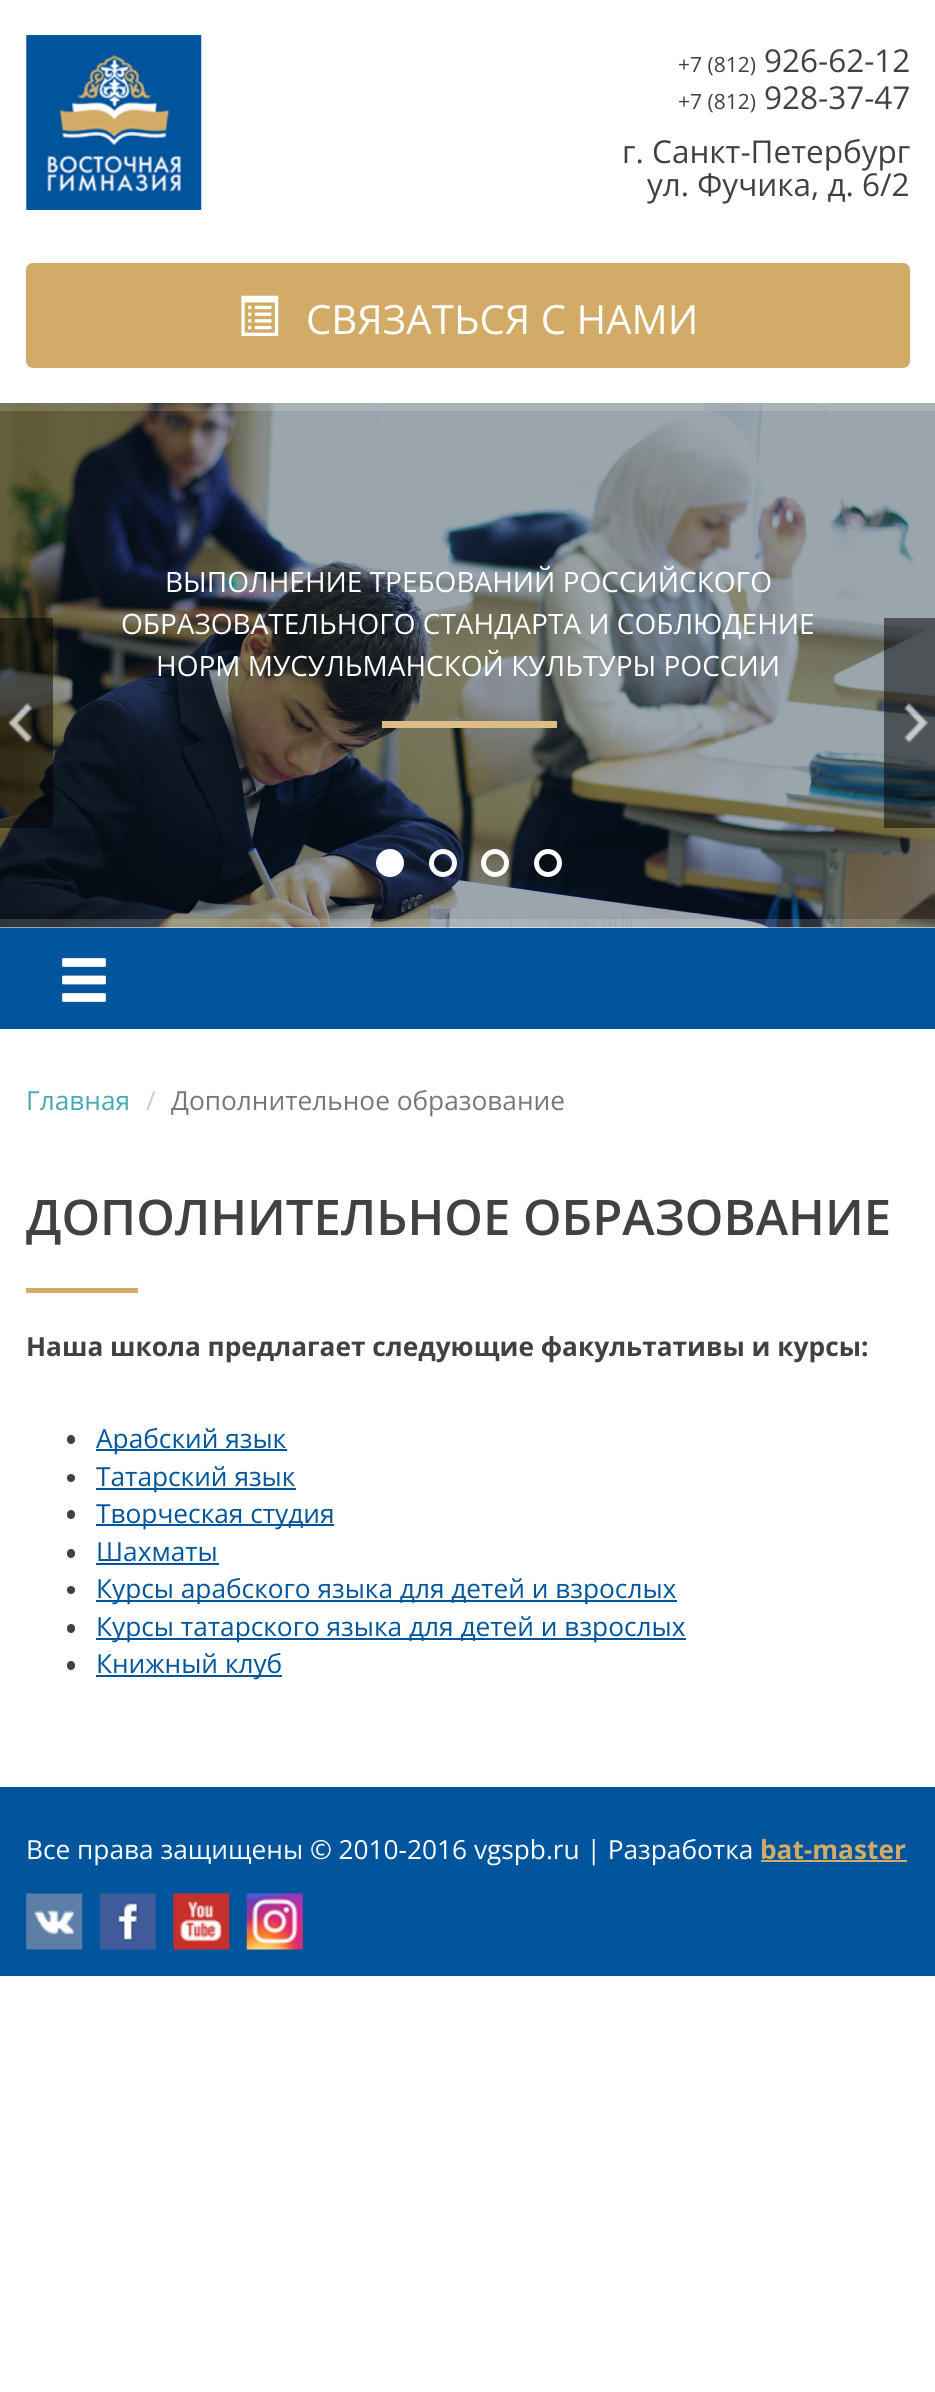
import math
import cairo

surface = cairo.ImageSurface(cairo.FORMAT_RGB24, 935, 2392)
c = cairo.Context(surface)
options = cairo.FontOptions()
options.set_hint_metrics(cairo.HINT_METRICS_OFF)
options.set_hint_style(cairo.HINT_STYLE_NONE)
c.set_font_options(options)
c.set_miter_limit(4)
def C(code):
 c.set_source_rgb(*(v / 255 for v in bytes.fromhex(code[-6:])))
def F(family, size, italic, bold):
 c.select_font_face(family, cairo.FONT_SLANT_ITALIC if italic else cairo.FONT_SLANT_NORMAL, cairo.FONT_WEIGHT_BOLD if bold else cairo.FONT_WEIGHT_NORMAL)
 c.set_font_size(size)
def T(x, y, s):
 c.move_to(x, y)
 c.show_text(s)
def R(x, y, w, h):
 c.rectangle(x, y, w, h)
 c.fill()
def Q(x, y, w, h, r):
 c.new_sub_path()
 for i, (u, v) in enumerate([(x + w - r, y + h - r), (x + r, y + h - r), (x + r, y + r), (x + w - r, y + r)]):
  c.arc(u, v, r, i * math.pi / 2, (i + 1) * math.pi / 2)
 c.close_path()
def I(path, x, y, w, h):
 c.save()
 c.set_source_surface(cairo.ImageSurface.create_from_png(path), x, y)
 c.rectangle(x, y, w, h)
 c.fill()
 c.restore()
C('ffffff')
c.paint()
I('1.png',26,35,176,175)
F('Open Sans',21,0,0)
C('3f4244')
T(678,72,'+7 (812)')
F('Open Sans',31.5,0,0)
T(764,72,'926-62-12')
F('Open Sans',21,0,0)
T(678,109,'+7 (812)')
F('Open Sans',31.5,0,0)
T(764,109,'928-37-47')
T(622,163,'г. Санкт-Петербург')
T(647,196,'ул. Фучика, д. 6/2')
C('d2ac67')
Q(26,263,884,105,7)
c.fill()
I('2.png',241,295,38,41)
F('Open Sans',40.25,0,0)
C('ffffff')
T(306,334,'СВЯЗАТЬСЯ С НАМИ')
I('3.png',0,403,935,525)
c.set_source_rgba(1,1,1,0.15)
R(0,403,935,8)
F('Open Sans',28,0,0)
C('ffffff')
T(165,592,'ВЫПОЛНЕНИЕ ТРЕБОВАНИЙ РОССИЙСКОГО')
T(121,634,'ОБРАЗОВАТЕЛЬНОГО СТАНДАРТА И СОБЛЮДЕНИЕ')
T(156,676,'НОРМ МУСУЛЬМАНСКОЙ КУЛЬТУРЫ РОССИИ')
C('dbbd85')
R(382,721,175,7)
c.set_source_rgba(0,0,0,0.5)
R(0,618,53,210)
I('4.png',8,703,24,40)
R(884,618,51,210)
I('5.png',904,703,24,40)
C('ffffff')
c.arc(390,863,11.5,0,2 * math.pi)
c.fill_preserve()
c.set_line_width(5)
c.stroke()
c.arc(443,863,11.5,0,2 * math.pi)
c.set_source_rgba(1,1,1,0.99)
c.stroke()
c.arc(495,863,11.5,0,2 * math.pi)
c.stroke()
c.arc(548,863,11.5,0,2 * math.pi)
c.stroke()
c.set_source_rgba(1,1,1,0.15)
R(0,919,935,9)
C('00559d')
R(0,928,935,101)
I('6.png',62,958,44,44)
F('Open Sans',26.25,0,0)
C('47a9b6')
T(26,1110,'Главная')
C('cccccc')
T(146,1110,'/')
C('777777')
T(171,1110,'Дополнительное образование')
F('Open Sans SemiBold',49,0,0)
C('3f4244')
T(26,1235,'ДОПОЛНИТЕЛЬНОЕ ОБРАЗОВАНИЕ')
C('d2ac67')
R(26,1288,112,5)
F('Open Sans',26.25,0,1)
C('3f4244')
T(26,1356,'Наша школа предлагает следующие факультативы и курсы:')
Q(67,1435,8,9,4)
c.fill()
C('00559d')
R(96,1449,191,2)
F('Open Sans',26.25,0,0)
T(96,1448,'Арабский язык')
C('3f4244')
c.new_path()
c.arc(71,1478,4,0,2 * math.pi)
c.fill()
C('00559d')
R(96,1488,200,2)
T(96,1486,'Татарский язык')
C('3f4244')
Q(67,1510,8,9,4)
c.fill()
C('00559d')
R(96,1524,238,2)
T(96,1523,'Творческая студия')
C('3f4244')
Q(67,1549,8,9,4)
c.fill()
C('00559d')
T(96,1561,'Шахматы')
R(96,1563,123,2)
C('3f4244')
c.new_path()
c.arc(71,1590,4,0,2 * math.pi)
c.fill()
C('00559d')
R(96,1600,581,2)
T(96,1598,'Курсы арабского языка для детей и взрослых')
C('3f4244')
Q(67,1624,8,9,4)
c.fill()
C('00559d')
R(96,1638,590,2)
T(96,1636,'Курсы татарского языка для детей и взрослых')
C('3f4244')
Q(67,1661,8,9,4)
c.fill()
C('00559d')
R(96,1675,186,2)
T(96,1673,'Книжный клуб')
R(0,1787,935,189)
C('ffffff')
T(26,1859,'Все права защищены © 2010-2016 vgspb.ru | Разработка')
F('Open Sans',26.25,0,1)
C('d2ac67')
T(760,1859,'bat-master')
R(761,1860,146,2)
I('7.png',26,1893,57,57)
I('8.png',99,1893,57,57)
I('9.png',173,1893,57,57)
I('10.png',246,1893,57,57)
surface.write_to_png('o.png')
